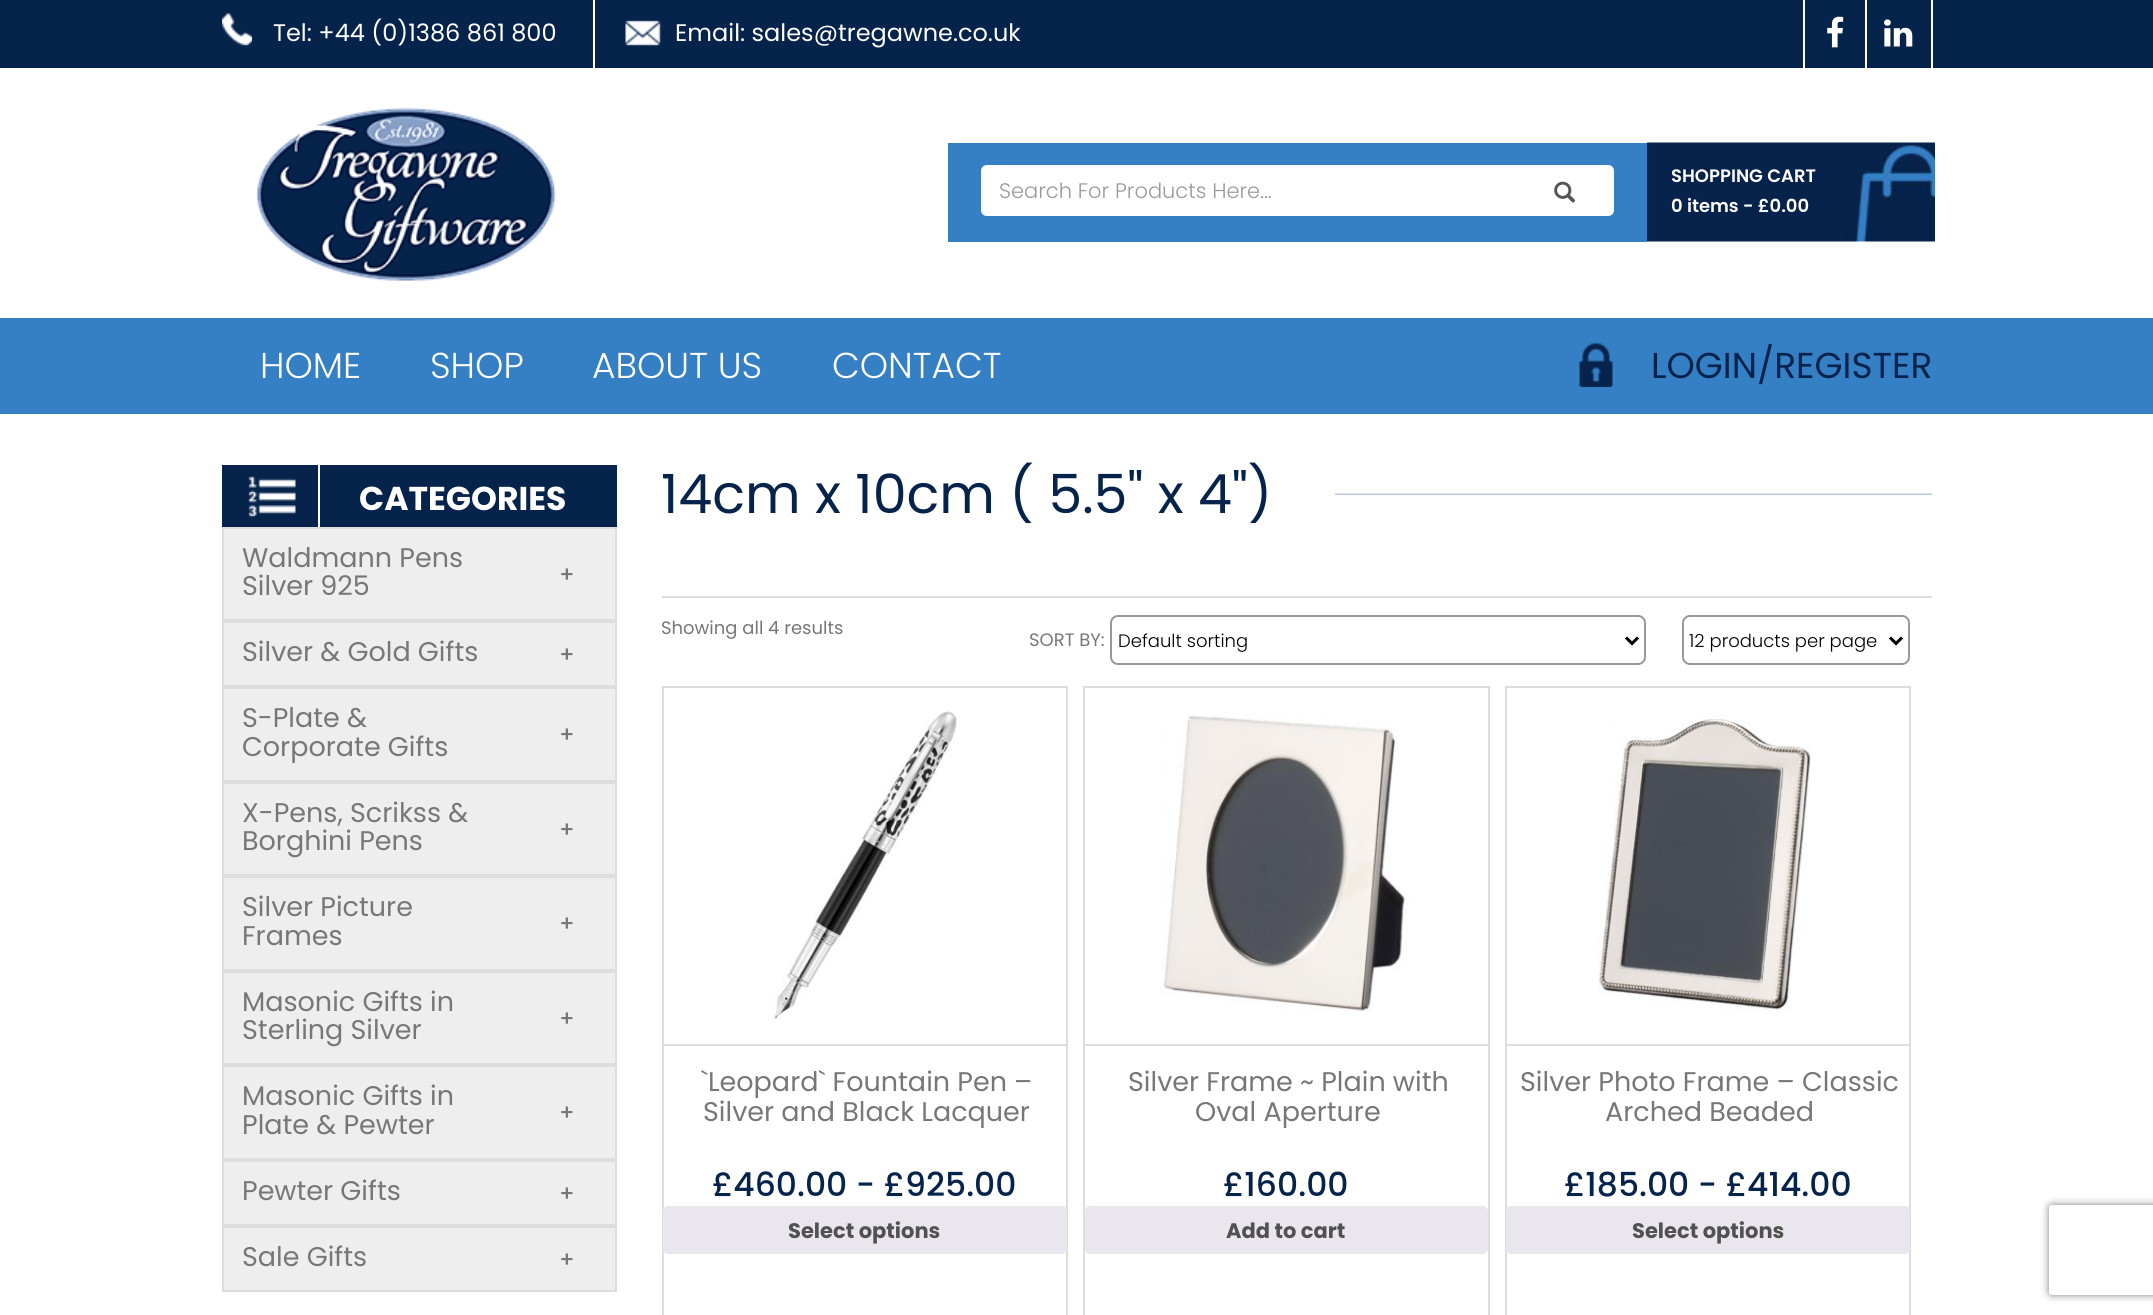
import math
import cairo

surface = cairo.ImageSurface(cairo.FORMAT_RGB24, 2153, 1315)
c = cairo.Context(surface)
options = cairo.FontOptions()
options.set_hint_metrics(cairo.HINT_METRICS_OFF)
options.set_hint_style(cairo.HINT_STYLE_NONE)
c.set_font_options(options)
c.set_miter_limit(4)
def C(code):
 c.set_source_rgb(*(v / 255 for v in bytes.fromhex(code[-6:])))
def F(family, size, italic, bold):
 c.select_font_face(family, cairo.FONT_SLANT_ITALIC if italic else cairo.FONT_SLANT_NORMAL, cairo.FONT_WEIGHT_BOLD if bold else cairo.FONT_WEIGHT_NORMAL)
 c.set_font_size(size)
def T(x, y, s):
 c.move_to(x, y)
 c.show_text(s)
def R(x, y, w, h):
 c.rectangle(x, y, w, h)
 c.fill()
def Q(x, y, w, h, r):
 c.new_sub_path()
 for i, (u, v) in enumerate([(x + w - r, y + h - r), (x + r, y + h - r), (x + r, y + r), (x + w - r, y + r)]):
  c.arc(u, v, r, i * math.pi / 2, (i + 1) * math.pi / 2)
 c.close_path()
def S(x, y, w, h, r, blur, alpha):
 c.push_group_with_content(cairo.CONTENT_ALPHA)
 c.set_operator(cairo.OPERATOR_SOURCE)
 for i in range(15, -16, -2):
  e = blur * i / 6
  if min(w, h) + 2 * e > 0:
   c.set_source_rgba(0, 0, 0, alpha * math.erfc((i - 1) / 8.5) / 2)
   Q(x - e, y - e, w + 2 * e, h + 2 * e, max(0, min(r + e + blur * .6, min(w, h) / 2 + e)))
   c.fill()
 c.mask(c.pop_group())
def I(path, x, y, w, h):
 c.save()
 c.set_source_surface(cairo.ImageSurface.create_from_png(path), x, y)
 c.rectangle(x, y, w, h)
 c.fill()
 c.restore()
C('ffffff')
c.paint()
C('06234b')
R(0,0,2153,68)
C('ffffff')
R(593,0,2,68)
I('1.png',222,13,30,33)
F('Poppins',24,0,0)
T(273,41,'Tel: +44 (0)1386 861 800')
I('2.png',625,20,36,26)
T(675,41,'Email: sales@tregawne.co.uk')
R(1803,0,2,68)
I('3.png',1827,16,17,32)
R(1931,0,2,68)
R(1865,0,2,68)
I('4.png',1884,19,29,28)
I('5.png',256,107,300,174)
C('357fc5')
R(948,143,699,99)
C('ffffff')
c.new_path()
c.move_to(987,165)
c.line_to(1514,165)
c.line_to(1514,216)
c.line_to(987,216)
c.curve_to(983.5,216,981,213.5,981,210)
c.line_to(981,171)
c.curve_to(981,167.5,983.5,165,987,165)
c.close_path()
c.fill()
F('Poppins Light',21,0,0)
C('999999')
T(999,198,'Search For Products Here...')
C('ffffff')
c.new_path()
c.move_to(1514,165)
c.line_to(1608,165)
c.curve_to(1611.5,165,1614,167.5,1614,171)
c.line_to(1614,210)
c.curve_to(1614,213.5,1611.5,216,1608,216)
c.line_to(1514,216)
c.close_path()
c.fill()
I('6.png',1554,181,22,22)
I('7.png',1647,142,288,100)
F('Poppins SemiBold',18,0,0)
T(1671,182,'SHOPPING CART')
T(1671,212,'0 items - £0.00')
C('357fc5')
R(0,318,2153,96)
F('Poppins Light',36,0,0)
C('ffffff')
T(260,378,'HOME')
T(430,378,'SHOP')
T(592,378,'ABOUT US')
T(832,378,'CONTACT')
I('8.png',1579,343,34,44)
F('Poppins',36,0,0)
C('06234b')
T(1651,378,'LOGIN/REGISTER')
R(222,465,395,62)
I('9.png',248,476,48,41)
C('ffffff')
R(318,465,2,62)
F('Poppins',33,0,1)
T(359,510,'CATEGORIES')
C('eeeeee')
R(224,529,391,761)
c.rectangle(223,528,393,92)
C('dddddd')
c.stroke()
F('Poppins',27,0,0)
C('777777')
T(242,567,'Waldmann Pens')
T(242,595,'Silver 925')
F('Poppins Medium',22,0,0)
T(559,582,'+')
c.rectangle(223,622,393,64)
C('dddddd')
c.stroke()
F('Poppins',27,0,0)
C('777777')
T(242,661,'Silver & Gold Gifts')
F('Poppins Medium',22,0,0)
T(559,662,'+')
c.rectangle(223,688,393,93)
C('dddddd')
c.stroke()
F('Poppins',27,0,0)
C('777777')
T(242,727,'S-Plate &')
T(242,756,'Corporate Gifts')
F('Poppins Medium',22,0,0)
T(559,742,'+')
c.rectangle(223,783,393,92)
C('dddddd')
c.stroke()
F('Poppins',27,0,0)
C('777777')
T(242,822,'X-Pens, Scrikss &')
T(242,850,'Borghini Pens')
F('Poppins Medium',22,0,0)
T(559,837,'+')
c.rectangle(223,877,393,93)
C('dddddd')
c.stroke()
F('Poppins',27,0,0)
C('777777')
T(242,916,'Silver Picture')
F('Poppins Medium',22,0,0)
T(559,931,'+')
F('Poppins',27,0,0)
T(242,945,'Frames')
c.rectangle(223,972,393,92)
C('dddddd')
c.stroke()
C('777777')
T(242,1011,'Masonic Gifts in')
T(242,1039,'Sterling Silver')
F('Poppins Medium',22,0,0)
T(559,1026,'+')
c.rectangle(223,1066,393,93)
C('dddddd')
c.stroke()
F('Poppins',27,0,0)
C('777777')
T(242,1105,'Masonic Gifts in')
F('Poppins Medium',22,0,0)
T(559,1120,'+')
F('Poppins',27,0,0)
T(242,1134,'Plate & Pewter')
c.rectangle(223,1161,393,64)
C('dddddd')
c.stroke()
C('777777')
T(242,1200,'Pewter Gifts')
F('Poppins Medium',22,0,0)
T(559,1201,'+')
c.rectangle(223,1227,393,64)
C('dddddd')
c.stroke()
F('Poppins',27,0,0)
C('777777')
T(242,1266,'Sale Gifts')
F('Poppins Medium',22,0,0)
T(559,1267,'+')
I('10.png',661,493,1271,2)
C('ffffff')
R(662,493,673,2)
F('Poppins',54,0,0)
C('06234b')
T(661,513,'14cm x 10cm ( 5.5" x 4")')
C('dddddd')
R(662,596,1270,2)
F('Poppins',18,0,0)
C('777777')
T(661,634,'Showing all 4 results')
T(1029,646,'SORT BY:')
Q(1111,616,534,48,7)
C('999999')
c.stroke()
c.new_path()
c.move_to(1626,637.5)
c.line_to(1632,643.5)
c.line_to(1638,637.5)
C('000000')
c.set_line_width(3)
c.stroke()
F('Poppins Light',18,0,0)
T(1118,647,'Default sorting')
Q(1683,616,226,48,7)
C('999999')
c.set_line_width(2)
c.stroke()
c.new_path()
c.move_to(1890,637.5)
c.line_to(1896,643.5)
c.line_to(1902,637.5)
C('000000')
c.set_line_width(3)
c.stroke()
T(1689,647,'12 products per page')
I('11.png',772,711,185,308)
c.rectangle(663,687,404,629)
C('dddddd')
c.set_line_width(2)
c.stroke()
R(663,1044,404,2)
F('Poppins',27,0,0)
C('777777')
T(701,1091,'`Leopard` Fountain Pen –')
T(703,1121,'Silver and Black Lacquer')
F('Poppins Medium',33,0,0)
C('06234b')
T(712,1196,'£460.00 - £925.00')
C('e9e6ed')
Q(663,1206,404,48,5)
c.fill()
F('Poppins',21,0,1)
C('515151')
T(788,1238,'Select options')
I('12.png',1161,714,248,298)
c.rectangle(1084,687,405,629)
C('dddddd')
c.stroke()
R(1085,1044,403,2)
F('Poppins',27,0,0)
C('777777')
T(1128,1091,'Silver Frame ~ Plain with')
T(1195,1121,'Oval Aperture')
F('Poppins Medium',33,0,0)
C('06234b')
T(1223,1196,'£160.00')
C('e9e6ed')
Q(1085,1206,403,48,5)
c.fill()
F('Poppins',21,0,1)
C('515151')
T(1226,1238,'Add to cart')
I('13.png',1598,714,213,297)
c.rectangle(1506,687,404,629)
C('dddddd')
c.stroke()
R(1506,1044,404,2)
F('Poppins',27,0,0)
C('777777')
T(1520,1091,'Silver Photo Frame – Classic')
T(1605,1121,'Arched Beaded')
F('Poppins Medium',33,0,0)
C('06234b')
T(1564,1196,'£185.00 - £414.00')
C('e9e6ed')
Q(1506,1206,404,48,5)
c.fill()
F('Poppins',21,0,1)
C('515151')
T(1632,1238,'Select options')
c.save()
c.set_fill_rule(cairo.FILL_RULE_EVEN_ODD)
c.new_path()
c.move_to(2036,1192)
c.line_to(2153,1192)
c.line_to(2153,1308)
c.line_to(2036,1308)
c.close_path()
c.move_to(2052,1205)
c.line_to(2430,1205)
c.curve_to(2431.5,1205,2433,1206.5,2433,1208)
c.line_to(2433,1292)
c.curve_to(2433,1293.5,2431.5,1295,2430,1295)
c.line_to(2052,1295)
c.curve_to(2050.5,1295,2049,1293.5,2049,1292)
c.line_to(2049,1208)
c.curve_to(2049,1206.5,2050.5,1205,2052,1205)
c.close_path()
c.clip()
C('808080')
S(2049,1205,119,90,3,4,1)
c.restore()
surface.write_to_png('o.png')
